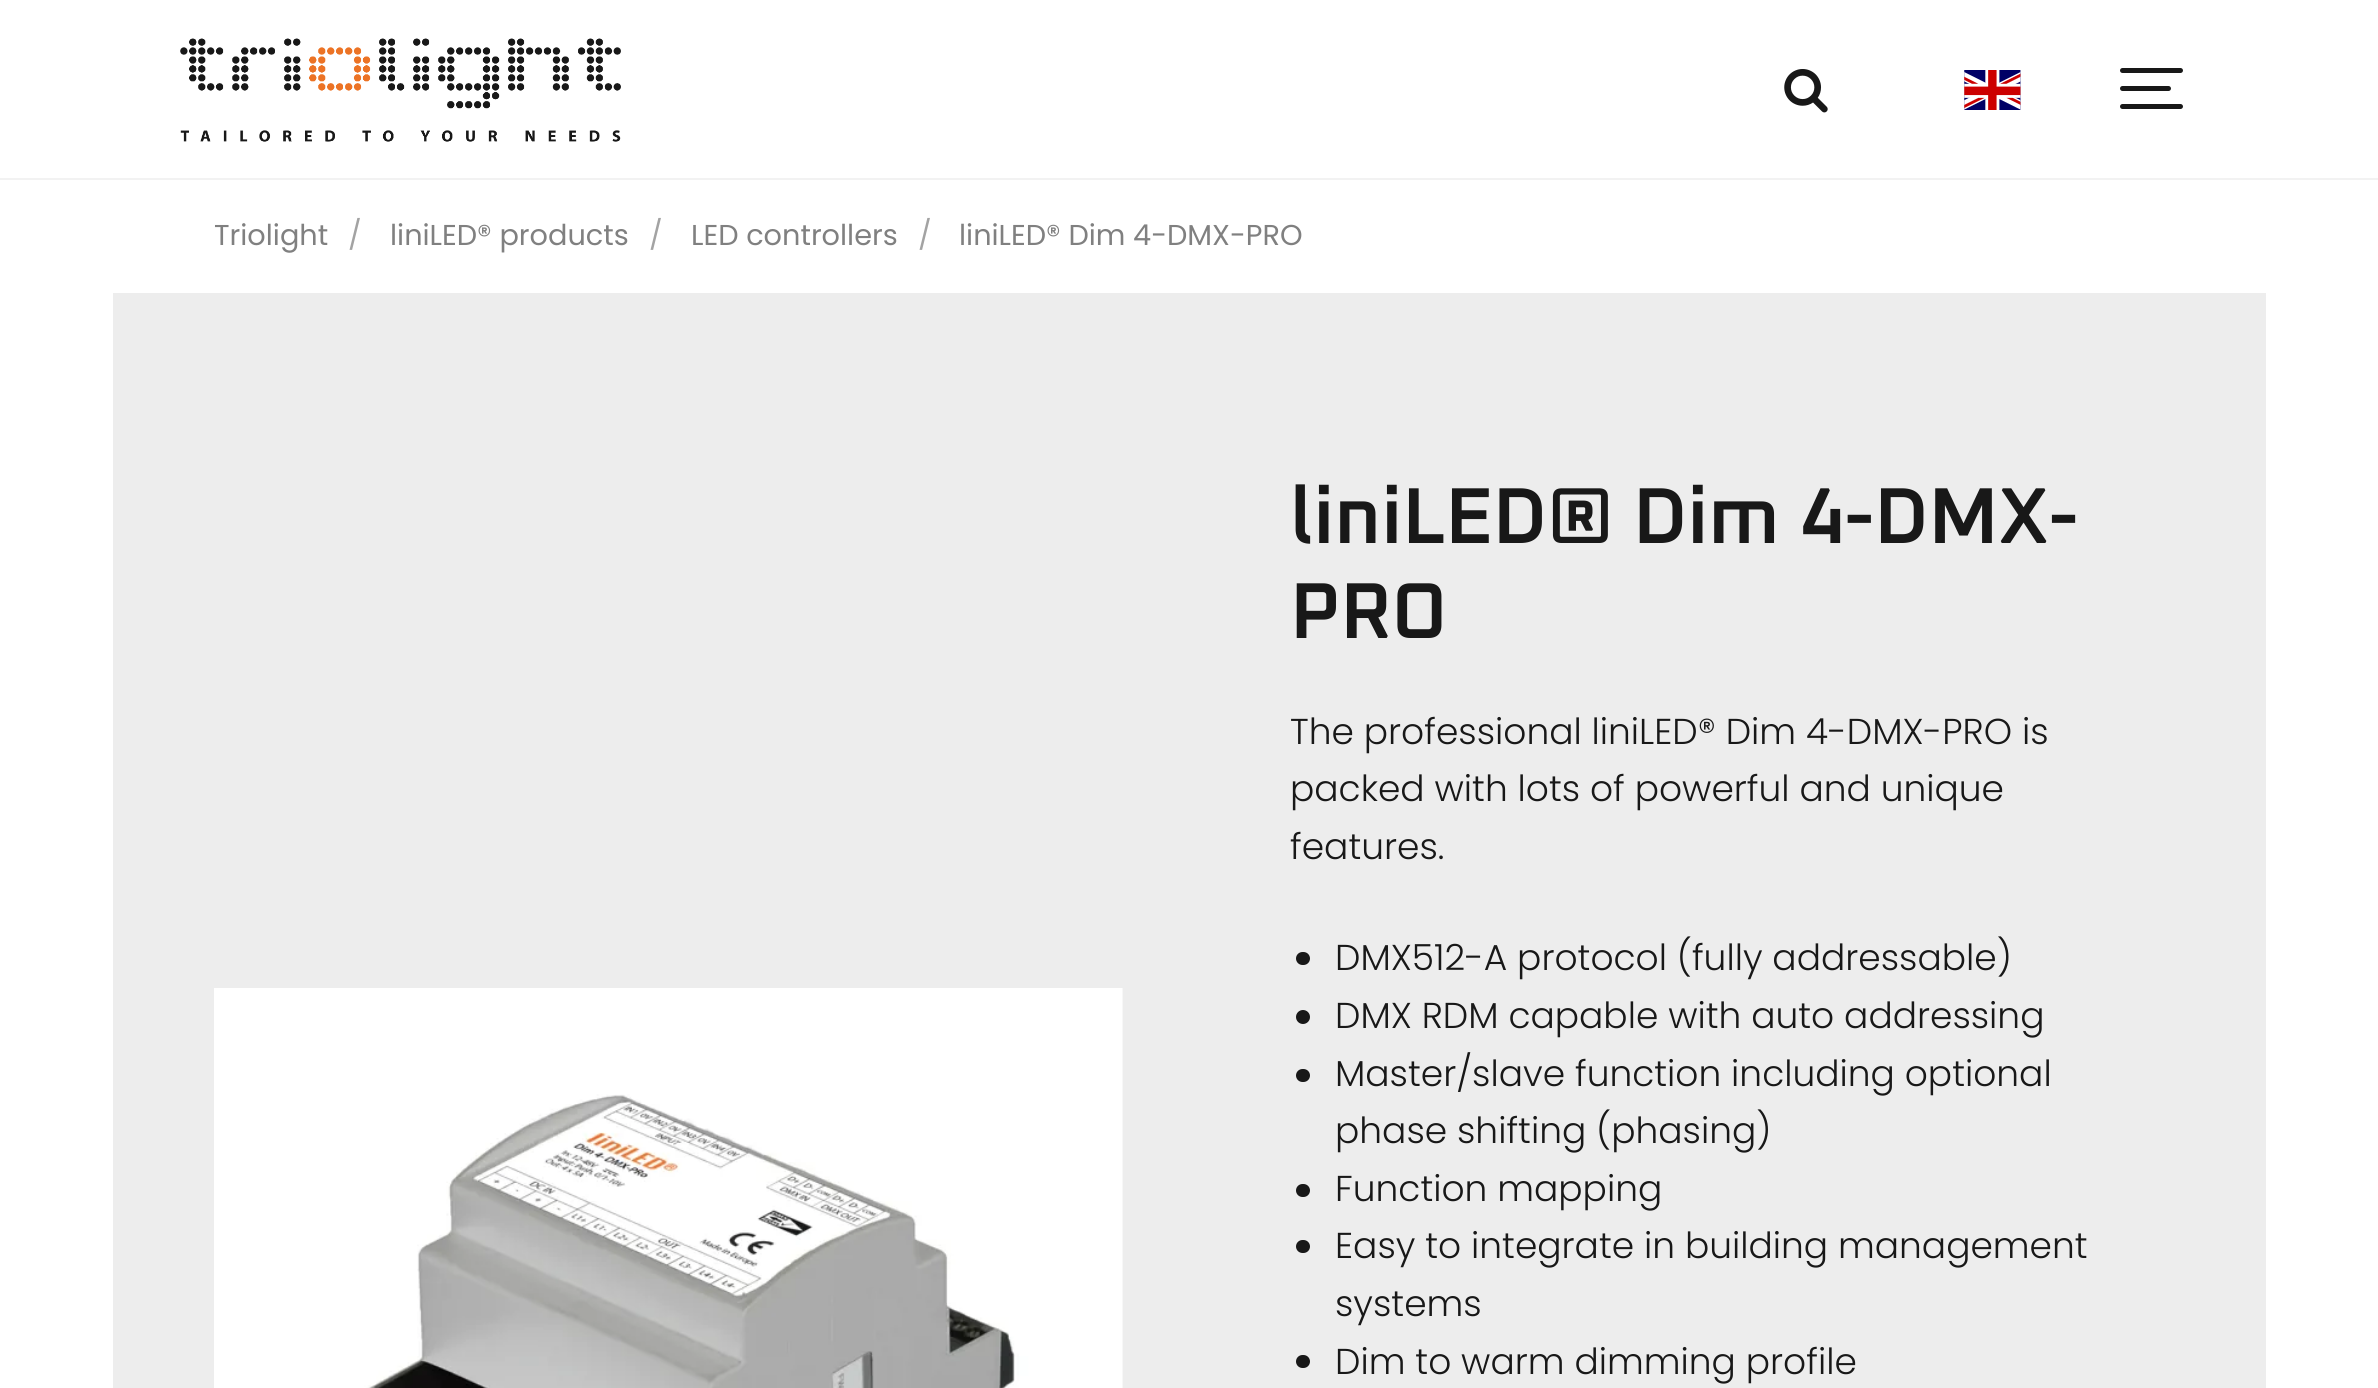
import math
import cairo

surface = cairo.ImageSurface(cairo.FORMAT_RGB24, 2378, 1388)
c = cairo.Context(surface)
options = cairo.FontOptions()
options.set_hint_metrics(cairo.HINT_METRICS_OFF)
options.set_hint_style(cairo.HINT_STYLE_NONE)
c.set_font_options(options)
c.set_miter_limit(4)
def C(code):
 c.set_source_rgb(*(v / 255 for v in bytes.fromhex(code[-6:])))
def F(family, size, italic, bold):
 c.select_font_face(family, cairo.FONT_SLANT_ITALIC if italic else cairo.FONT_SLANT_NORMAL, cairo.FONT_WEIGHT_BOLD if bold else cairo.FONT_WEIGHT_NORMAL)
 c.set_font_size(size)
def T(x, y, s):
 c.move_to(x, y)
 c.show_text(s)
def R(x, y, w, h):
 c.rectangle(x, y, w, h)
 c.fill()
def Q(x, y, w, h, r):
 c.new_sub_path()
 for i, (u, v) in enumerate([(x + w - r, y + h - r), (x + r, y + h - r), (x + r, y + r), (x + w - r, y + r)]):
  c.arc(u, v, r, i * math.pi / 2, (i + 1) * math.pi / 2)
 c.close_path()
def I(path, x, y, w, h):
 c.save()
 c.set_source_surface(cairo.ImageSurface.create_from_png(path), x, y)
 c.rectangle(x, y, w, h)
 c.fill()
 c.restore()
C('ffffff')
c.paint()
C('f2f2f2')
R(0,178,2378,2)
I('1.png',180,38,441,104)
I('2.png',1784,69,44,44)
I('3.png',1964,70,57,40)
C('181818')
Q(2120,86,51,5,2.5)
c.fill()
Q(2120,68,63,5,2.5)
c.fill()
Q(2120,104,63,5,2.5)
c.fill()
F('Poppins',28.75,0,0)
C('808080')
T(214,245,'Triolight')
C('a3a3a3')
T(348,245,'/')
C('808080')
T(390,245,'liniLED® products')
C('a3a3a3')
T(649,245,'/')
C('808080')
T(691,245,'LED controllers')
C('a3a3a3')
T(918,245,'/')
C('808080')
T(959,245,'liniLED® Dim 4-DMX-PRO')
C('ededed')
R(113,293,2153,1095)
I('4.png',214,988,909,400)
F('Oxanium SemiBold',79.25,0,0)
C('181818')
T(1290,543,'liniLED® Dim 4-DMX-')
T(1290,638,'PRO')
F('Poppins Light',36,0,0)
T(1290,744,'The professional liniLED® Dim 4-DMX-PRO is')
T(1290,801,'packed with lots of powerful and unique')
T(1290,859,'features.')
Q(1296,952,14,13,6.5)
c.fill()
T(1335,970,'DMX512-A protocol (fully addressable)')
c.new_path()
c.arc(1303,1017,7,0,2 * math.pi)
c.fill()
T(1335,1028,'DMX RDM capable with auto addressing')
Q(1296,1069,14,13,6.5)
c.fill()
T(1335,1086,'Master/slave function including optional')
T(1335,1143,'phase shifting (phasing)')
Q(1296,1184,14,13,6.5)
c.fill()
T(1335,1201,'Function mapping')
Q(1296,1240,14,13,6.5)
c.fill()
T(1335,1258,'Easy to integrate in building management')
T(1335,1316,'systems')
Q(1296,1355,14,13,6.5)
c.fill()
T(1335,1374,'Dim to warm dimming profile')
surface.write_to_png('o.png')
